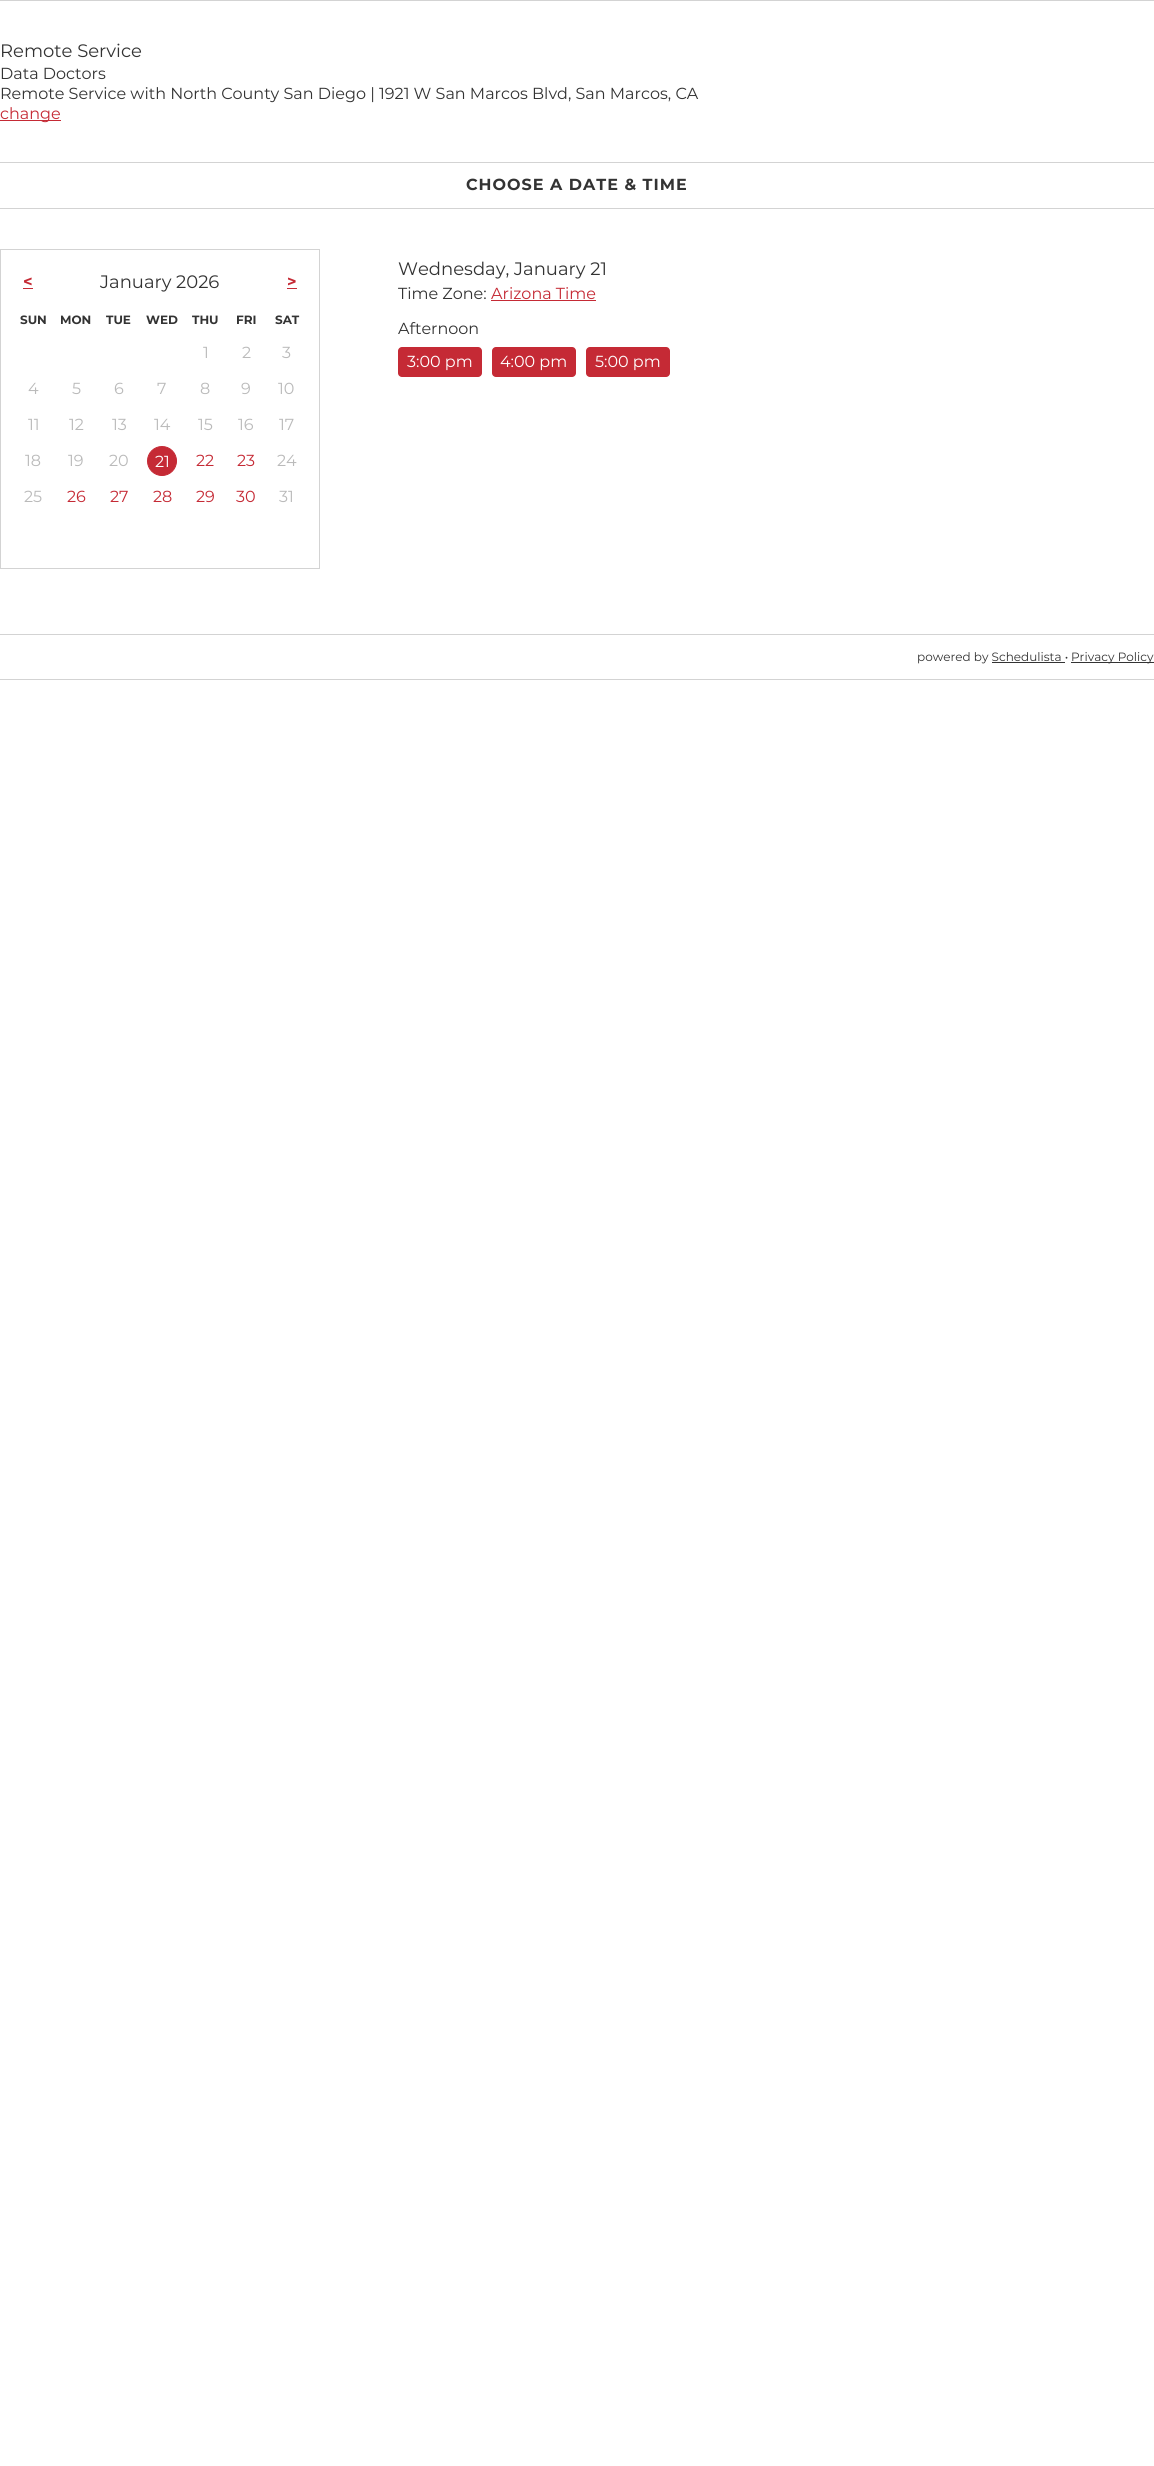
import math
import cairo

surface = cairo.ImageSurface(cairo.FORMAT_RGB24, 1154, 2466)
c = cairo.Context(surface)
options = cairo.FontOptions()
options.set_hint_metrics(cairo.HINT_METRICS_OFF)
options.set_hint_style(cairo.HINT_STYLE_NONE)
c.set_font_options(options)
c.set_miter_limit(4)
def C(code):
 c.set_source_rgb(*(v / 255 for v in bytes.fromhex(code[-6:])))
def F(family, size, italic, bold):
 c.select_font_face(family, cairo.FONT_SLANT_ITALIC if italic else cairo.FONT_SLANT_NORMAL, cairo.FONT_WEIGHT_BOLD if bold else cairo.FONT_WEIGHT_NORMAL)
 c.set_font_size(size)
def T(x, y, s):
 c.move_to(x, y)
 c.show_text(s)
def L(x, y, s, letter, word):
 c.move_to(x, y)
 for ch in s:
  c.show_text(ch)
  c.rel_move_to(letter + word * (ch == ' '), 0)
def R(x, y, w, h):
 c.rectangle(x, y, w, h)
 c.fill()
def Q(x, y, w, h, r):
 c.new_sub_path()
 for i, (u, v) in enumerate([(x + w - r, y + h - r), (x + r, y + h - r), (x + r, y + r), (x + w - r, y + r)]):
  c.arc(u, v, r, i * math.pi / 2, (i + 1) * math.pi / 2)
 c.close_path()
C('ffffff')
c.paint()
C('d3d3d3')
R(0,0,1154,1)
F('Montserrat',18,0,0)
C('333333')
T(0,57,'Remote Service')
F('Montserrat',16,0,0)
T(0,79,'Data Doctors')
T(0,99,'Remote Service with North County San Diego | 1921 W San Marcos Blvd, San Marcos, CA')
C('c52a35')
R(0,120,61,1)
T(0,119,'change')
C('d3d3d3')
R(0,162,1154,1)
R(0,208,1154,1)
F('Montserrat',16,0,1)
C('333333')
L(466,190,'CHOOSE A DATE & TIME',1,0)
c.rectangle(.5,249.5,319,319)
C('d3d3d3')
c.set_line_width(1)
c.stroke()
C('c52a35')
T(23,287,'<')
R(23,288,10,1)
F('Montserrat',18,0,0)
C('333333')
T(100,288,'January')
T(176,288,'2026')
F('Montserrat',16,0,1)
C('c52a35')
T(287,287,'>')
R(287,288,10,1)
F('Montserrat',12,0,1)
C('333333')
T(20,324,'SUN')
T(60,324,'MON')
T(106,324,'TUE')
T(146,324,'WED')
T(192,324,'THU')
T(236,324,'FRI')
T(275,324,'SAT')
F('Montserrat',16,0,0)
C('bababa')
T(203,358,'1')
T(242,358,'2')
T(282,358,'3')
T(28,394,'4')
T(72,394,'5')
T(114,394,'6')
T(157,394,'7')
T(200,394,'8')
T(241,394,'9')
T(278,394,'10')
T(28,430,'11')
T(69,430,'12')
T(112,430,'13')
T(154,430,'14')
T(198,430,'15')
T(238,430,'16')
T(279,430,'17')
T(25,466,'18')
T(68,466,'19')
T(109,466,'20')
C('c52a35')
c.new_path()
c.arc(162,461,14.5,0,2 * math.pi)
c.fill_preserve()
c.stroke()
C('ffffff')
T(155,467,'21')
C('c52a35')
T(196,466,'22')
T(237,466,'23')
C('bababa')
T(277,466,'24')
T(24,502,'25')
C('c52a35')
T(67,502,'26')
T(110,502,'27')
T(153,502,'28')
T(196,502,'29')
T(236,502,'30')
C('bababa')
T(279,502,'31')
F('Montserrat',18,0,0)
C('333333')
T(398,275,'Wednesday, January 21')
F('Montserrat',16,0,0)
T(398,299,'Time Zone:')
C('c52a35')
T(491,299,'Arizona Time')
R(491,300,105,1)
C('333333')
T(398,334,'Afternoon')
C('c52a35')
Q(398,347,84,30,4)
c.fill()
C('ffffff')
T(407,367,'3:00 pm')
C('c52a35')
Q(492,347,84,30,4)
c.fill()
C('ffffff')
T(500,367,'4:00 pm')
C('c52a35')
Q(586,347,84,30,4)
c.fill()
C('ffffff')
T(595,367,'5:00 pm')
C('d3d3d3')
R(0,634,1154,1)
R(0,679,1154,1)
F('Montserrat',12,0,0)
C('333333')
T(917,661,'powered by Schedulista •')
R(1071,662,83,1)
T(1071,661,'Privacy Policy')
R(992,662,73,1)
surface.write_to_png('o.png')
